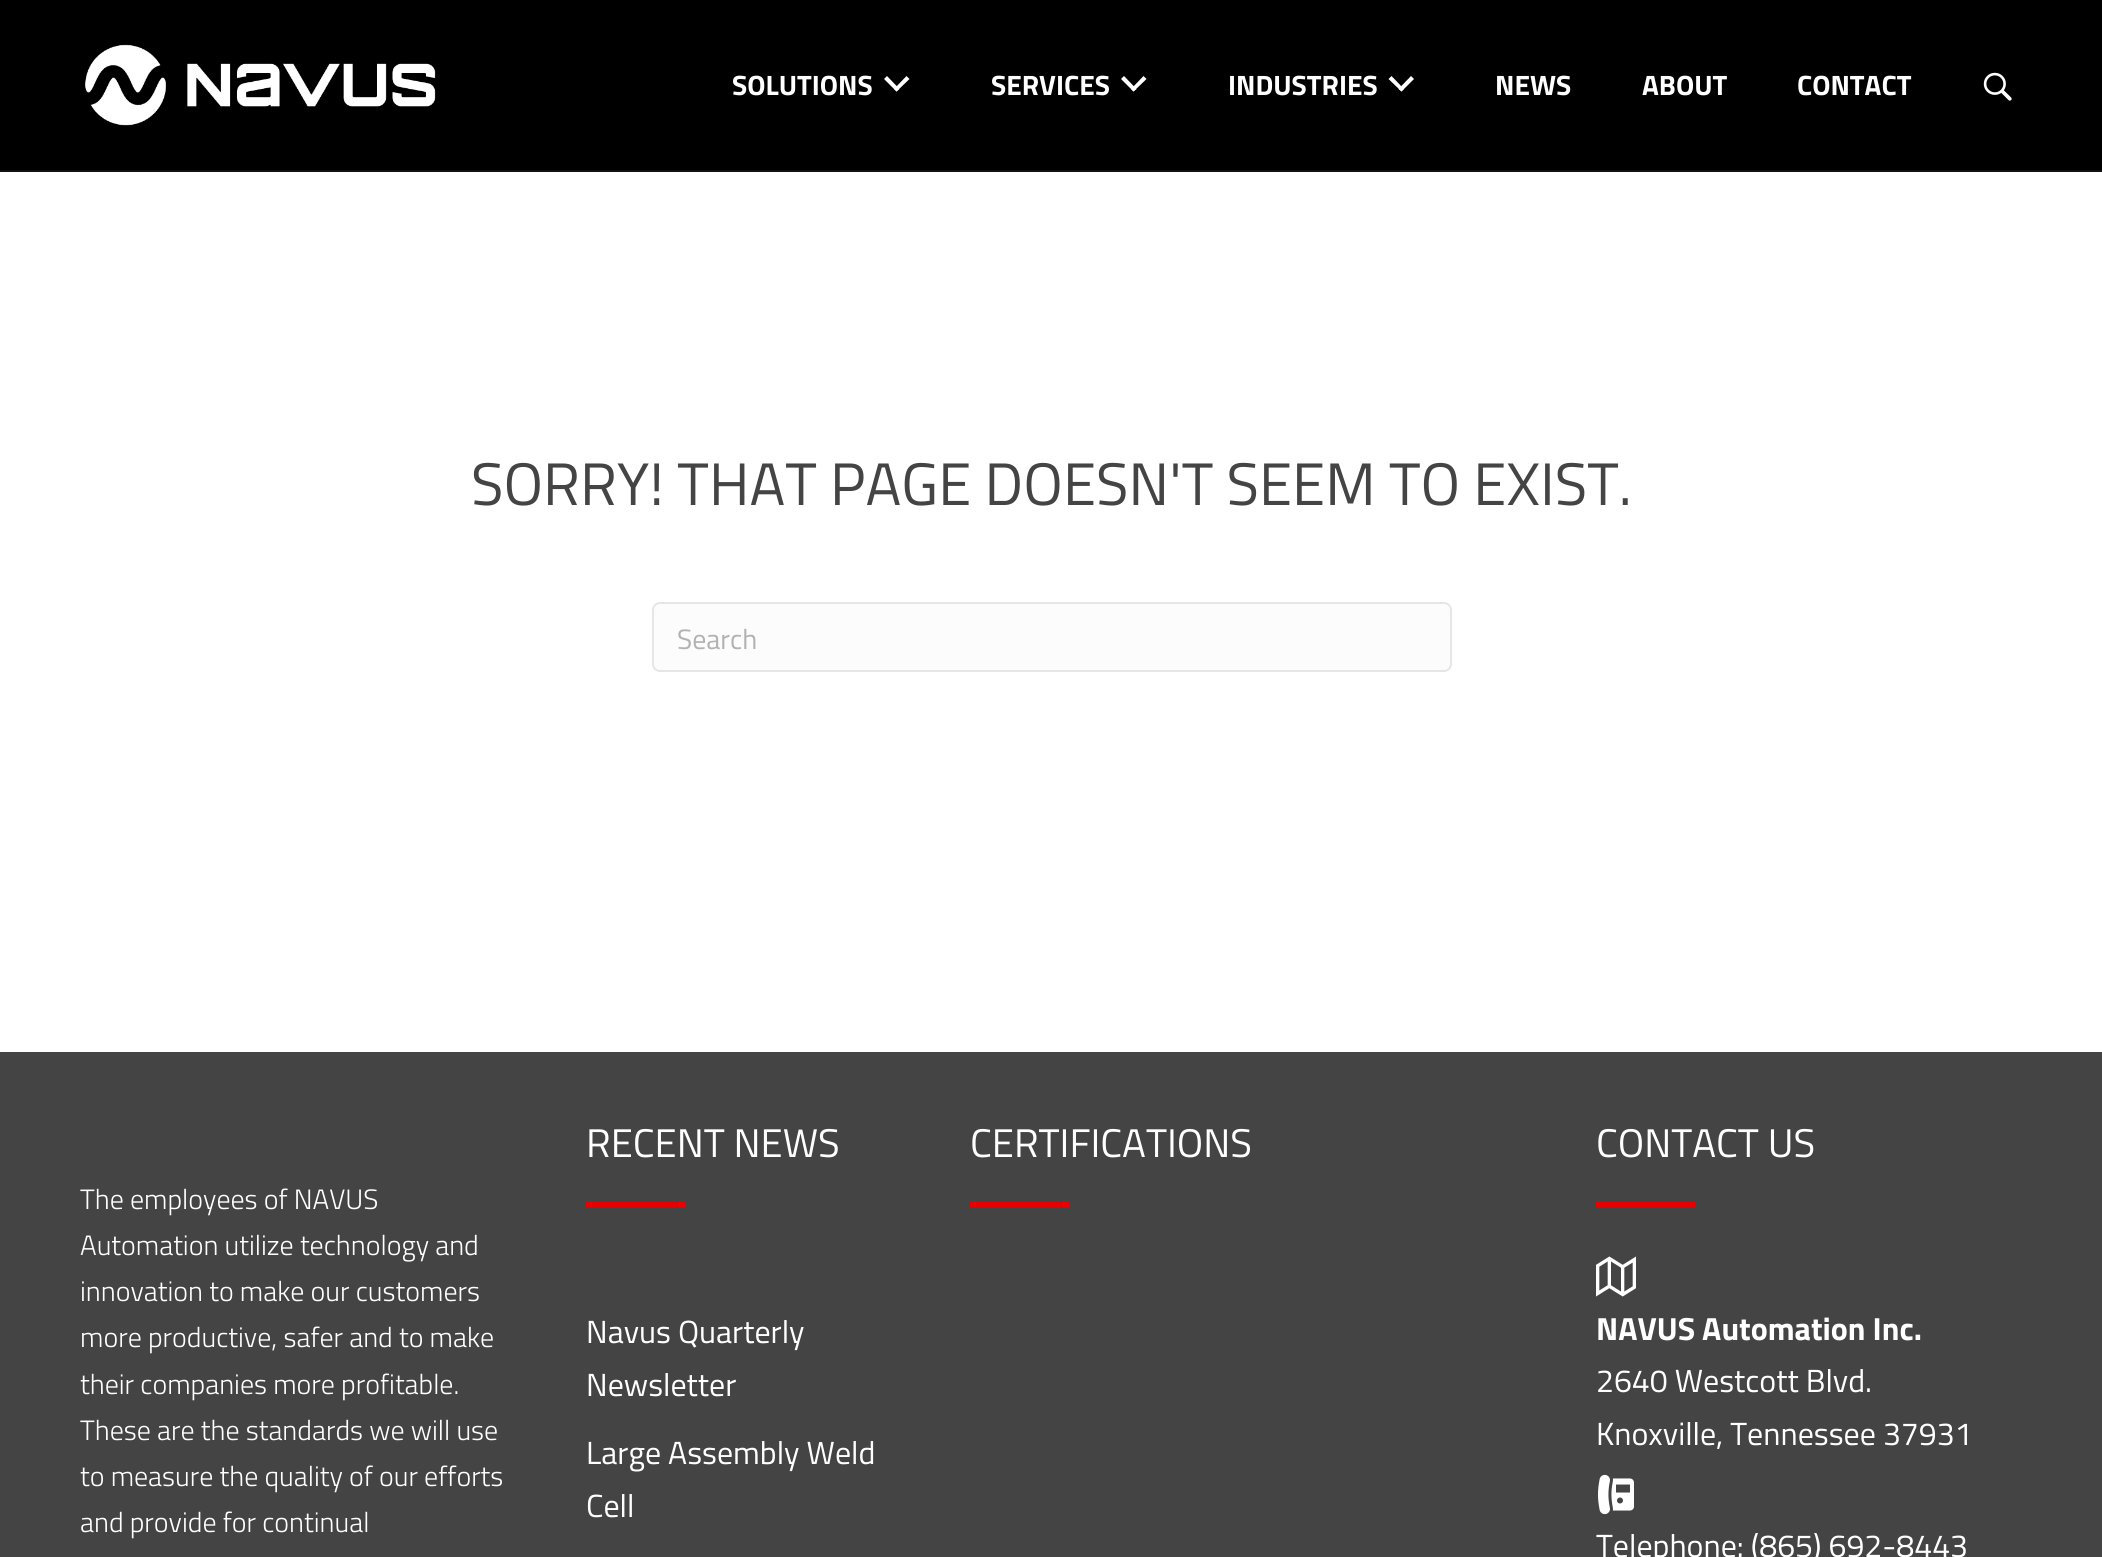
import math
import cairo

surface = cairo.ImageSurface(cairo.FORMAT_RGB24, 2102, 1557)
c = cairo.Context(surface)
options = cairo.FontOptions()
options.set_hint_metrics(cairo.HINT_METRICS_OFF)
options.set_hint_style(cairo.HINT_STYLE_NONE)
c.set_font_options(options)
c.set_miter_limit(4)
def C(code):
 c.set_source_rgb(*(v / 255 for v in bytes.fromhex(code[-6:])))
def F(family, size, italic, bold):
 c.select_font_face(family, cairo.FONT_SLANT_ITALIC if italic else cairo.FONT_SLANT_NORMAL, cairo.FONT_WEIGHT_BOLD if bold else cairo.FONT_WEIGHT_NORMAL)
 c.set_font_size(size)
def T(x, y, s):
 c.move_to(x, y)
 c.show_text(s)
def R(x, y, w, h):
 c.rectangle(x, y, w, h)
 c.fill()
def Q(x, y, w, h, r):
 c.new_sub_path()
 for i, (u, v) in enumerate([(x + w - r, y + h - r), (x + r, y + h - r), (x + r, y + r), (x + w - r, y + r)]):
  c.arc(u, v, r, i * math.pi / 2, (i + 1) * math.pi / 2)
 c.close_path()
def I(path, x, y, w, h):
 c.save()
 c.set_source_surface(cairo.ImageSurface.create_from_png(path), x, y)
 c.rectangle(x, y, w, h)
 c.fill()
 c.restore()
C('ffffff')
c.paint()
C('000000')
R(0,0,2102,170)
C('111111')
R(0,170,2102,2)
I('1.png',85,44,351,82)
F('Titillium Web',28,0,1)
C('ffffff')
T(732,95,'SOLUTIONS')
c.new_path()
c.move_to(906.5,76)
c.line_to(909.5,79)
c.line_to(896.5,91.5)
c.line_to(894,89)
c.close_path()
c.fill()
c.new_path()
c.move_to(887,76)
c.line_to(899.5,89)
c.line_to(896.5,91.5)
c.line_to(884,79)
c.close_path()
c.fill()
T(991,95,'SERVICES')
c.new_path()
c.move_to(1143.5,76)
c.line_to(1146.5,79)
c.line_to(1133.5,91.5)
c.line_to(1131,89)
c.close_path()
c.fill()
c.new_path()
c.move_to(1124,76)
c.line_to(1136.5,89)
c.line_to(1133.5,91.5)
c.line_to(1121,79)
c.close_path()
c.fill()
T(1228,95,'INDUSTRIES')
c.new_path()
c.move_to(1411,76)
c.line_to(1414,79)
c.line_to(1401.5,91.5)
c.line_to(1398.5,89)
c.close_path()
c.fill()
c.new_path()
c.move_to(1391.5,76)
c.line_to(1404,89)
c.line_to(1401.5,91.5)
c.line_to(1388.5,79)
c.close_path()
c.fill()
T(1495,95,'NEWS')
T(1642,95,'ABOUT')
T(1797,95,'CONTACT')
I('2.png',1983,72,29,29)
F('Titillium Web',60,0,0)
C('444444')
T(471,505,'SORRY! THAT PAGE DOESN\'T SEEM TO EXIST.')
C('fcfcfc')
Q(653,603,798,68,7)
c.fill_preserve()
C('e6e6e6')
c.stroke()
F('Titillium Web',28,0,0)
C('b2b2b2')
T(677,649,'Search')
C('444444')
R(0,1052,2102,505)
F('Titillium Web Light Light',28,0,0)
C('ffffff')
T(80,1209,'The employees of NAVUS')
T(80,1255,'Automation utilize technology and')
T(80,1301,'innovation to make our customers')
T(80,1347,'more productive, safer and to make')
T(80,1394,'their companies more profitable.')
T(80,1440,'These are the standards we will use')
T(80,1486,'to measure the quality of our efforts')
T(80,1532,'and provide for continual')
F('Titillium Web',40,0,0)
T(586,1157,'RECENT NEWS')
C('e60000')
R(586,1202,100,6)
F('Titillium Web',32,0,0)
C('ffffff')
T(586,1343,'Navus Quarterly')
T(586,1396,'Newsletter')
T(586,1464,'Large Assembly Weld')
T(586,1517,'Cell')
F('Titillium Web',40,0,0)
T(970,1157,'CERTIFICATIONS')
C('e60000')
R(970,1202,100,6)
C('ffffff')
T(1596,1157,'CONTACT US')
C('e60000')
R(1596,1202,100,6)
I('3.png',1596,1256,40,41)
F('Titillium Web',32,0,1)
C('ffffff')
T(1596,1340,'NAVUS Automation Inc.')
F('Titillium Web',32,0,0)
T(1596,1392,'2640 Westcott Blvd.')
T(1596,1445,'Knoxville, Tennessee 37931')
I('4.png',1598,1474,36,41)
T(1596,1557,'Telephone: (865) 692-8443')
surface.write_to_png('o.png')
